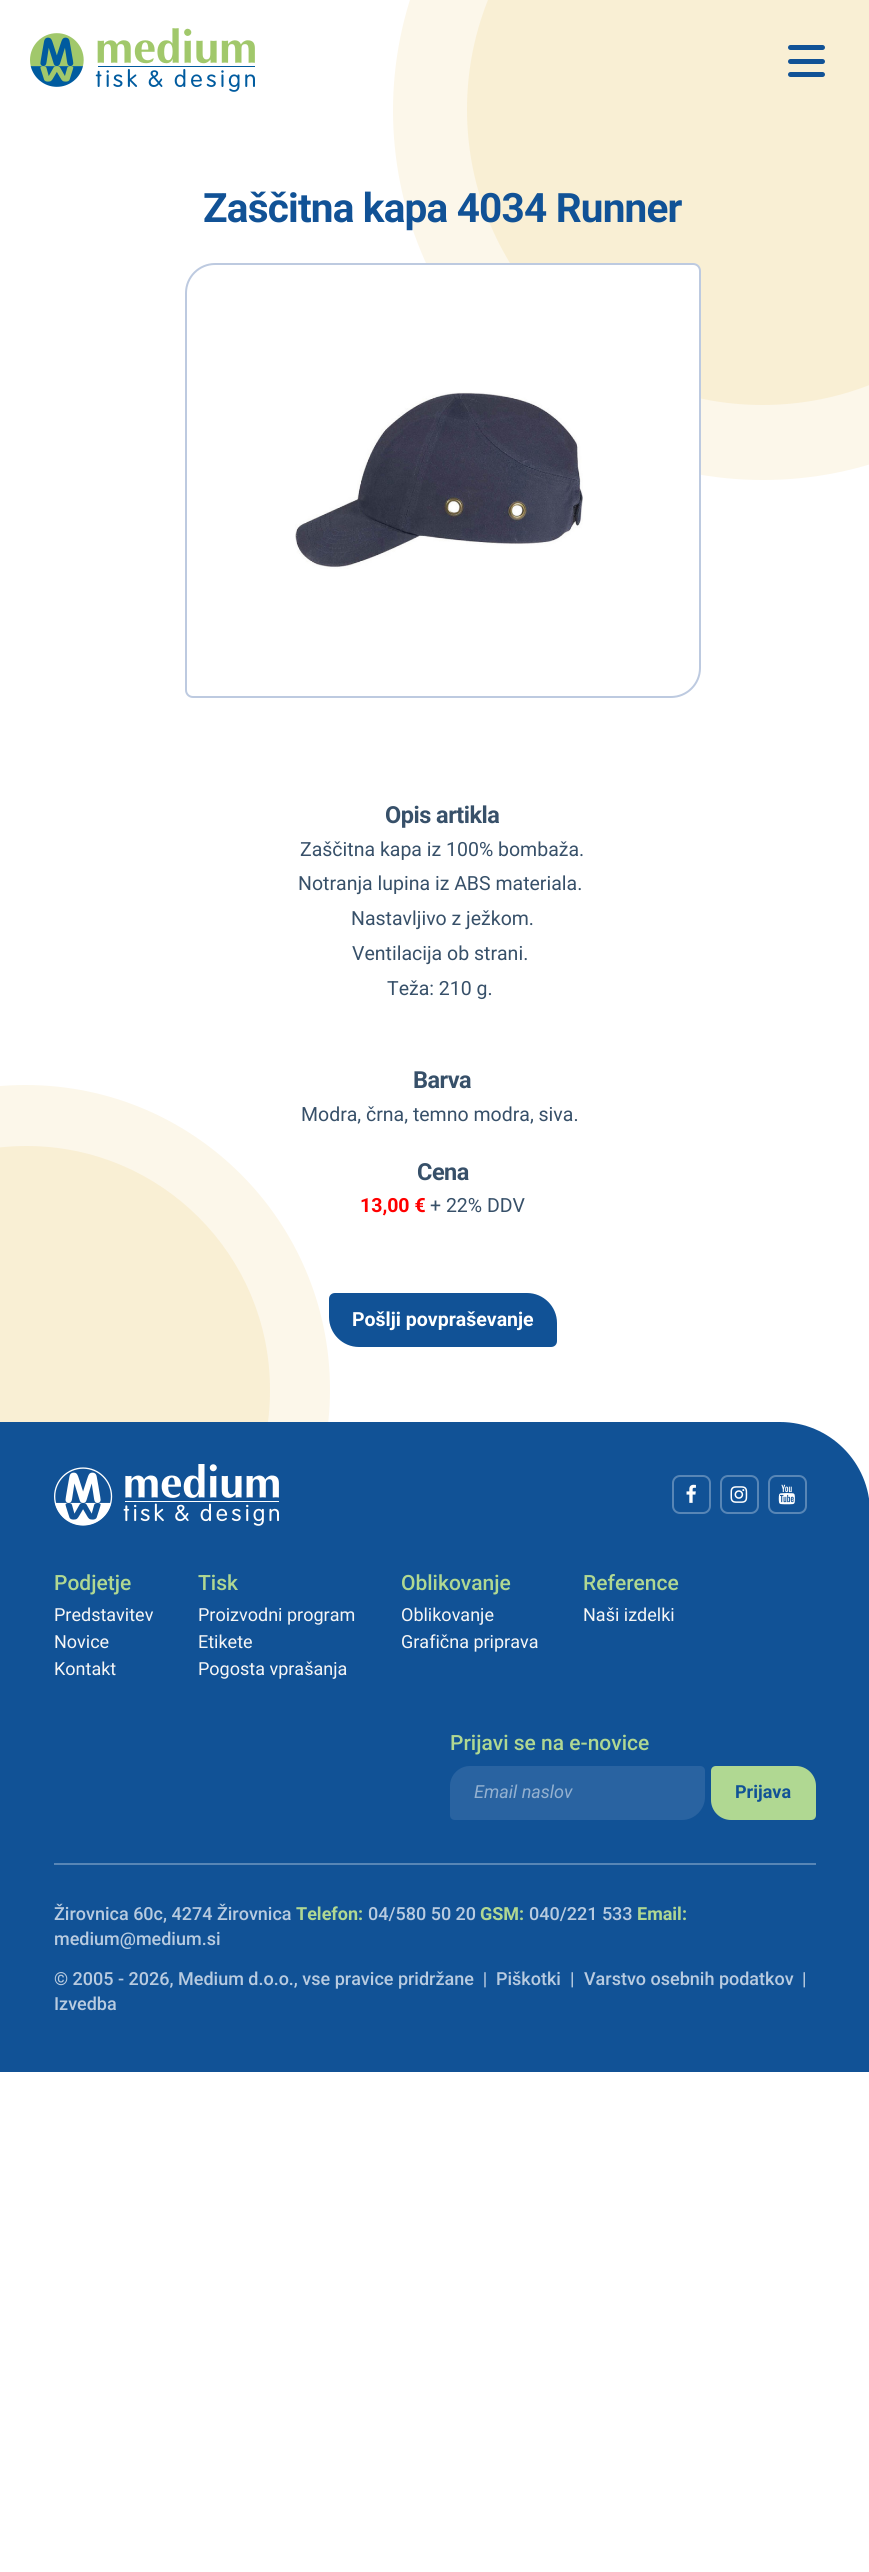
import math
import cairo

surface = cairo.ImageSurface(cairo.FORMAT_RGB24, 869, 2572)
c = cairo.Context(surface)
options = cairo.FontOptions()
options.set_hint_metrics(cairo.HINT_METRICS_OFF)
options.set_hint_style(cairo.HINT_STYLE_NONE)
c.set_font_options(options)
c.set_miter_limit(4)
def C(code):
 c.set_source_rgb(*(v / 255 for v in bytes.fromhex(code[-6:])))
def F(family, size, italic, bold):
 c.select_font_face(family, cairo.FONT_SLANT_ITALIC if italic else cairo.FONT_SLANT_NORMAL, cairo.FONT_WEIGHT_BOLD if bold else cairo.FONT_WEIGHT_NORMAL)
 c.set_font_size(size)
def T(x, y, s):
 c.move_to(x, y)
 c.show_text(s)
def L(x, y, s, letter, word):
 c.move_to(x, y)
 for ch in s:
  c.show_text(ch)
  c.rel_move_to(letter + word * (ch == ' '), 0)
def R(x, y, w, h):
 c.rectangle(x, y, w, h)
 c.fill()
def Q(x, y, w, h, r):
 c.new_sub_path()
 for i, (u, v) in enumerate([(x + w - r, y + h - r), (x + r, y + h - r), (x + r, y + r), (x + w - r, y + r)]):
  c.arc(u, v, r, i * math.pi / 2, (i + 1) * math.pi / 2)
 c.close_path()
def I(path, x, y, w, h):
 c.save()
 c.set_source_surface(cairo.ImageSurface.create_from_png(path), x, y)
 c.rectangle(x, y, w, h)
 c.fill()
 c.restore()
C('ffffff')
c.paint()
I('1.png',30,28,225,64)
C('fcf7ea')
Q(393,-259,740,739,369.5)
c.fill()
C('f9efd4')
c.arc(762.5,109.5,295.5,0,2 * math.pi)
c.fill()
C('115296')
Q(788,45,37,5,2.5)
c.fill()
Q(788,59,37,5,2.5)
c.fill()
Q(788,72,37,5,2.5)
c.fill()
C('fcf7ea')
c.arc(25.5,1389.5,304.5,0,2 * math.pi)
c.fill()
C('f9efd4')
Q(-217,1146,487,488,243.5)
c.fill()
F('Roboto',40.5,0,1)
C('115296')
L(203,222,'Zaščitna kapa 4034 Runner',-.8,0)
C('ffffff')
c.new_path()
c.move_to(215,263)
c.line_to(693,263)
c.curve_to(697.5,263,701,266.5,701,271)
c.line_to(701,668)
c.curve_to(701,684.5,687.5,698,671,698)
c.line_to(193,698)
c.curve_to(188.5,698,185,694.5,185,690)
c.line_to(185,293)
c.curve_to(185,276.5,198.5,263,215,263)
c.close_path()
c.fill()
c.new_path()
c.move_to(215,264)
c.line_to(693,264)
c.curve_to(697,264,700,267,700,271)
c.line_to(700,668)
c.curve_to(700,684,687,697,671,697)
c.line_to(193,697)
c.curve_to(189,697,186,694,186,690)
c.line_to(186,293)
c.curve_to(186,277,199,264,215,264)
c.close_path()
c.set_source_rgba(0.133,0.302,0.588,0.3)
c.stroke()
I('2.png',295,392,288,177)
F('Roboto',23.5,0,1)
C('375069')
L(385,823,'Opis artikla',-.5,0)
F('Roboto',19.5,0,0)
T(300,856,'Zaščitna kapa iz 100% bombaža.')
T(298,890,'Notranja lupina iz ABS materiala.')
T(351,925,'Nastavljivo z ježkom.')
T(352,960,'Ventilacija ob strani.')
T(387,995,'Teža: 210 g.')
F('Roboto',23.5,0,1)
L(413,1088,'Barva',-.5,0)
F('Roboto',19.5,0,0)
T(301,1121,'Modra, črna, temno modra, siva.')
F('Roboto',23.5,0,1)
L(417,1180,'Cena',-.5,0)
F('Roboto',19.5,0,1)
C('ff0000')
T(360,1212,'13,00 €')
F('Roboto',19.5,0,0)
C('375069')
T(430,1212,'+ 22% DDV')
C('115296')
c.new_path()
c.move_to(335,1293)
c.line_to(527,1293)
c.curve_to(543.5,1293,557,1306.5,557,1323)
c.line_to(557,1341)
c.curve_to(557,1344.5,554.5,1347,551,1347)
c.line_to(359,1347)
c.curve_to(342.5,1347,329,1333.5,329,1317)
c.line_to(329,1299)
c.curve_to(329,1295.5,331.5,1293,335,1293)
c.close_path()
c.fill()
F('Roboto',19.5,0,1)
C('ffffff')
T(352,1326,'Pošlji povpraševanje')
C('115296')
c.new_path()
c.move_to(0,1422)
c.line_to(780,1422)
c.curve_to(829.5,1422,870,1462.5,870,1512)
c.line_to(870,2072)
c.line_to(0,2072)
c.close_path()
c.fill()
I('3.png',54,1464,225,62)
Q(673,1476,37,37,7)
C('5886b6')
c.stroke()
I('4.png',686,1484,10,19)
Q(721,1476,37,37,7)
c.stroke()
I('5.png',730,1486,18,17)
Q(769,1476,37,37,7)
c.stroke()
I('6.png',778,1484,17,21)
F('Roboto Medium',21,0,0)
C('b0d892')
T(54,1590,'Podjetje')
F('Roboto',18,0,0)
C('f6f6f6')
T(54,1621,'Predstavitev')
T(54,1648,'Novice')
T(54,1675,'Kontakt')
F('Roboto Medium',21,0,0)
C('b0d892')
T(198,1590,'Tisk')
F('Roboto',18,0,0)
C('f6f6f6')
T(198,1621,'Proizvodni program')
T(198,1648,'Etikete')
T(198,1675,'Pogosta vprašanja')
F('Roboto Medium',21,0,0)
C('b0d892')
T(401,1590,'Oblikovanje')
F('Roboto',18,0,0)
C('f6f6f6')
T(401,1621,'Oblikovanje')
T(401,1648,'Grafična priprava')
F('Roboto Medium',21,0,0)
C('b0d892')
T(583,1590,'Reference')
F('Roboto',18,0,0)
C('f6f6f6')
T(583,1621,'Naši izdelki')
F('Roboto Medium',21,0,0)
C('b0d892')
T(450,1750,'Prijavi se na e-novice')
C('2963a1')
c.new_path()
c.move_to(470,1766)
c.line_to(700,1766)
c.curve_to(703,1766,705,1768,705,1771)
c.line_to(705,1797)
c.curve_to(705,1809.5,694.5,1820,682,1820)
c.line_to(455,1820)
c.curve_to(452,1820,450,1818,450,1815)
c.line_to(450,1786)
c.curve_to(450,1775,459,1766,470,1766)
c.close_path()
c.fill()
F('Roboto',18,1,0)
C('94b1d0')
T(474,1798,'Email naslov')
C('b0d892')
c.new_path()
c.move_to(716,1766)
c.line_to(796,1766)
c.curve_to(807,1766,816,1775,816,1786)
c.line_to(816,1815)
c.curve_to(816,1818,814,1820,811,1820)
c.line_to(731,1820)
c.curve_to(720,1820,711,1811,711,1800)
c.line_to(711,1771)
c.curve_to(711,1768,713,1766,716,1766)
c.close_path()
c.fill()
F('Roboto',18,0,1)
C('115296')
T(735,1798,'Prijava')
C('5886b6')
R(54,1863,762,2)
F('Roboto Medium',18,0,0)
C('b8cbe0')
T(54,1920,'Žirovnica 60c, 4274 Žirovnica')
F('Roboto',18,0,1)
C('b0d892')
T(296,1920,'Telefon:')
F('Roboto Medium',18,0,0)
C('b8cbe0')
T(368,1920,'04/580 50 20')
F('Roboto',18,0,1)
C('b0d892')
T(480,1920,'GSM:')
F('Roboto Medium',18,0,0)
C('b8cbe0')
T(529,1920,'040/221 533')
F('Roboto',18,0,1)
C('b0d892')
T(637,1920,'Email:')
F('Roboto Medium',18,0,0)
C('b8cbe0')
T(54,1945,'medium@medium.si')
T(54,1985,'© 2005 - 2026, Medium d.o.o., vse pravice pridržane  |')
T(496,1985,'Piškotki')
T(570,1985,'|')
T(584,1985,'Varstvo osebnih podatkov')
T(802,1985,'|')
T(54,2010,'Izvedba')
surface.write_to_png('o.png')
